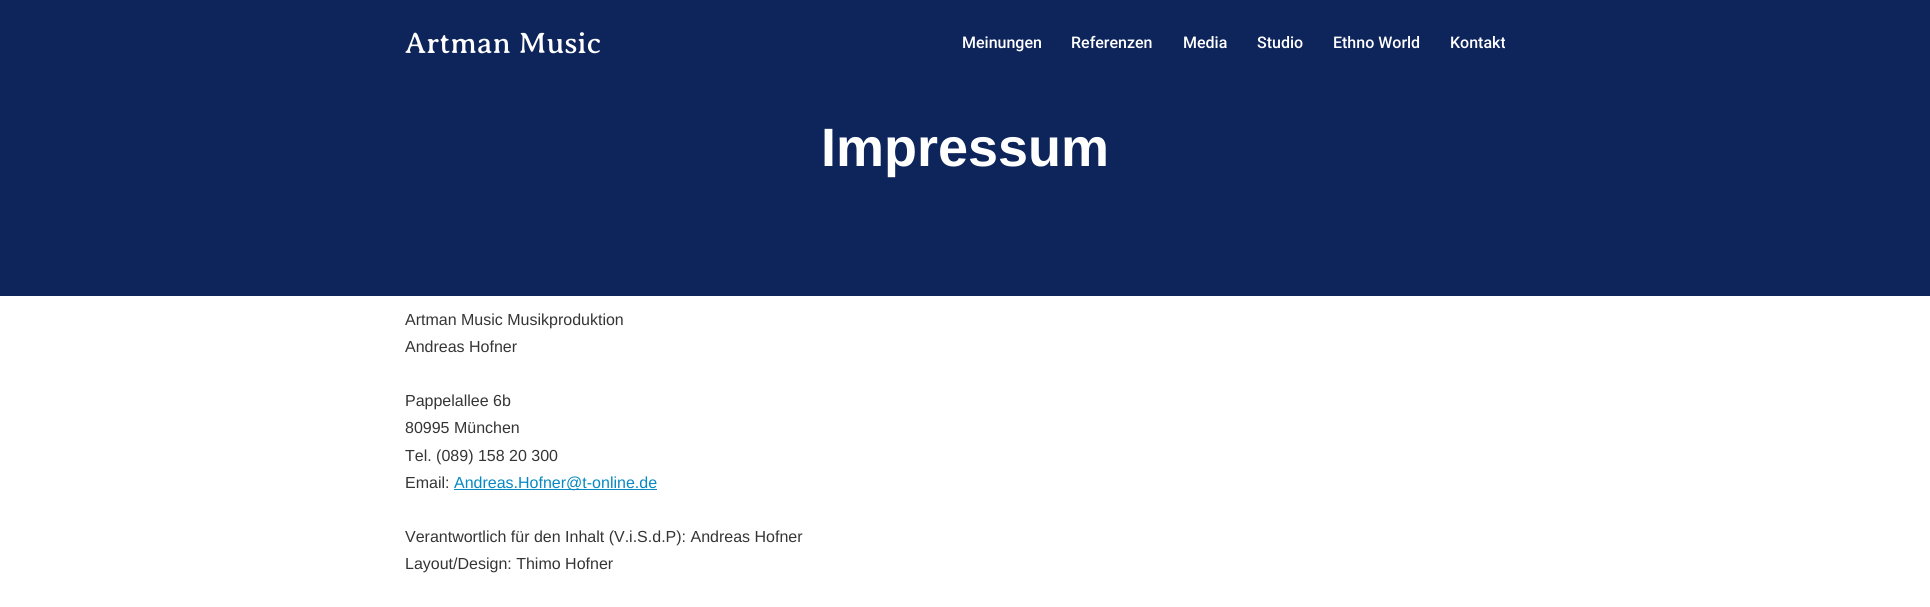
import math
import cairo

surface = cairo.ImageSurface(cairo.FORMAT_RGB24, 1930, 607)
c = cairo.Context(surface)
options = cairo.FontOptions()
options.set_hint_metrics(cairo.HINT_METRICS_OFF)
options.set_hint_style(cairo.HINT_STYLE_NONE)
c.set_font_options(options)
c.set_miter_limit(4)
def C(code):
 c.set_source_rgb(*(v / 255 for v in bytes.fromhex(code[-6:])))
def F(family, size, italic, bold):
 c.select_font_face(family, cairo.FONT_SLANT_ITALIC if italic else cairo.FONT_SLANT_NORMAL, cairo.FONT_WEIGHT_BOLD if bold else cairo.FONT_WEIGHT_NORMAL)
 c.set_font_size(size)
def T(x, y, s):
 c.move_to(x, y)
 c.show_text(s)
def R(x, y, w, h):
 c.rectangle(x, y, w, h)
 c.fill()
C('ffffff')
c.paint()
C('0e255b')
R(0,0,1930,296)
F('Averia Serif Libre',30,0,0)
C('ffffff')
T(405,53,'Artman Music')
F('Roboto Medium',16,0,0)
T(962,48,'Meinungen')
T(1071,48,'Referenzen')
T(1183,48,'Media')
T(1257,48,'Studio')
T(1333,48,'Ethno World')
T(1450,48,'Kontakt')
F('Liberation Sans',54,0,1)
T(821,166,'Impressum')
F('Liberation Sans',16,0,0)
C('353535')
T(405,325,'Artman Music Musikproduktion')
T(405,352,'Andreas Hofner')
T(405,406,'Pappelallee 6b')
T(405,433,'80995 München')
T(405,461,'Tel. (089) 158 20 300')
T(405,488,'Email:')
C('0688c3')
R(454,489,203,1)
T(454,488,'Andreas.Hofner@t-online.de')
C('353535')
T(405,542,'Verantwortlich für den Inhalt (V.i.S.d.P): Andreas Hofner')
T(405,569,'Layout/Design: Thimo Hofner')
surface.write_to_png('o.png')
